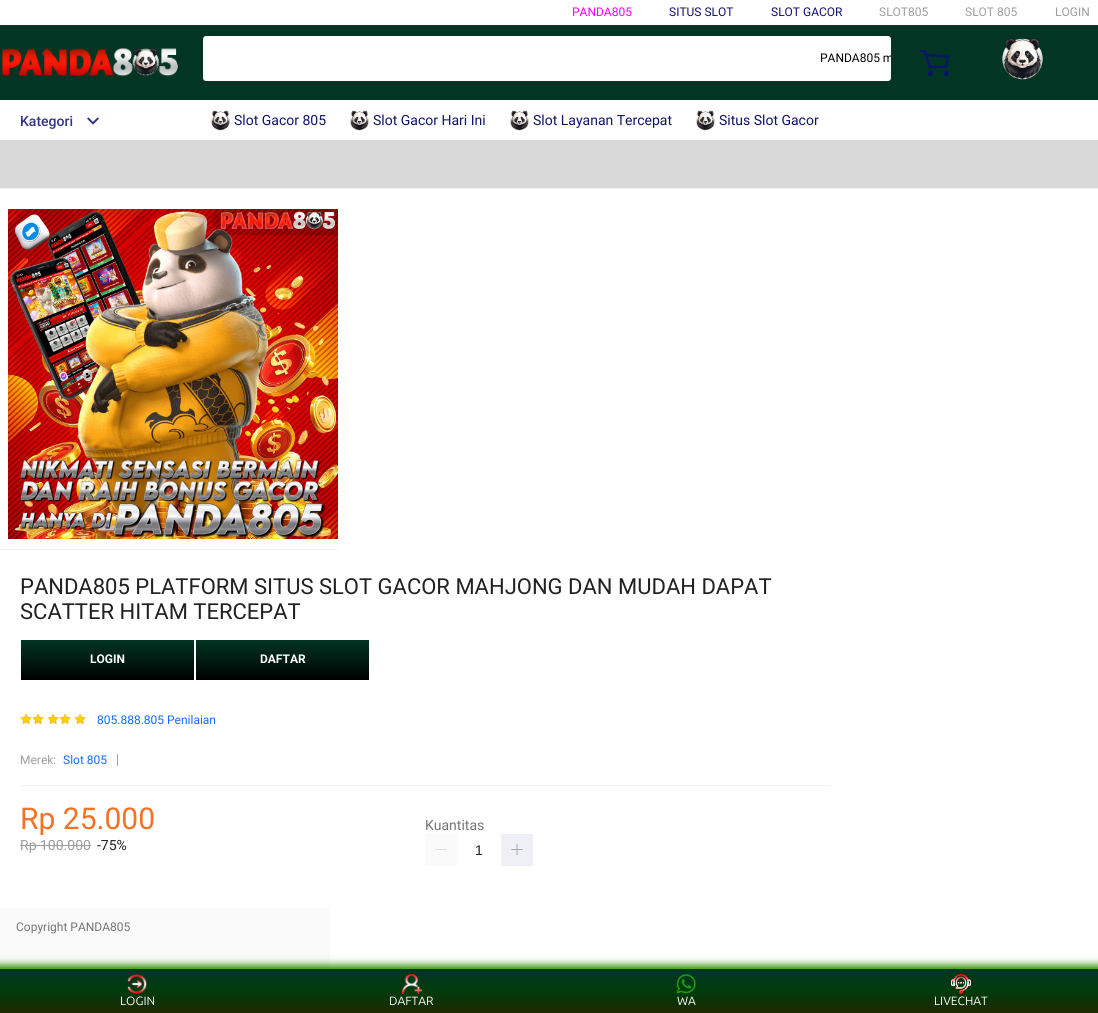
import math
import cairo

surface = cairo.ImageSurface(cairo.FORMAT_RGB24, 1098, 1013)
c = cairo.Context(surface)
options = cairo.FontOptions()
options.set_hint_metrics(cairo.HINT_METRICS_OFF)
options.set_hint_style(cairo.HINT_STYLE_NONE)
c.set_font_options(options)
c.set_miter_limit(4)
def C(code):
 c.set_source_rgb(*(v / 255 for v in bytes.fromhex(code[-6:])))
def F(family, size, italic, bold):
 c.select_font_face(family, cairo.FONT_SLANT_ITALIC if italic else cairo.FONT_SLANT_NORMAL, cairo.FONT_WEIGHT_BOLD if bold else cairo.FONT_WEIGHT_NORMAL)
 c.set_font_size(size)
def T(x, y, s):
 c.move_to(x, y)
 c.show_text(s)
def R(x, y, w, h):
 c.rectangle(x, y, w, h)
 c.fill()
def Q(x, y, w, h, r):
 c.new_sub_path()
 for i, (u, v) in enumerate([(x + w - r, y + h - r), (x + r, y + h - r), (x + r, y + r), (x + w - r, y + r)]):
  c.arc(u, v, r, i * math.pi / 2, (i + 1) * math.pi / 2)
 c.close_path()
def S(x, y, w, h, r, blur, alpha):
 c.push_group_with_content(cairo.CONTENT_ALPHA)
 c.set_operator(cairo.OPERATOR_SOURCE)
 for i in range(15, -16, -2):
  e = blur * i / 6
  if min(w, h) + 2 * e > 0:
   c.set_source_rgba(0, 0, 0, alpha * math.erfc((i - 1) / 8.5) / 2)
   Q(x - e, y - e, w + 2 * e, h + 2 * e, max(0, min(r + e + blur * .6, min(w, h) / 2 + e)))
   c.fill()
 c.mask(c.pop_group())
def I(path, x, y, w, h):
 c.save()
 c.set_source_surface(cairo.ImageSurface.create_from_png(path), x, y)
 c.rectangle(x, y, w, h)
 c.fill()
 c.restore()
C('d8d8d8')
c.paint()
C('ffffff')
R(0,0,1098,140)
F('Roboto',12,0,0)
C('ff00ff')
T(572,16,'PANDA805')
C('0f136d')
T(669,16,'SITUS SLOT')
T(771,16,'SLOT GACOR')
C('9e9e9e')
T(879,16,'SLOT805')
T(965,16,'SLOT 805')
T(1055,16,'LOGIN')
C('023524')
R(0,25,1098,75)
I('1.png',1,48,177,29)
C('ffffff')
Q(203,36,688,45,3)
c.fill()
c.save()
c.rectangle(203,36,688,45)
c.clip()
C('000000')
T(820,62,'PANDA805 m')
c.restore()
I('2.png',920,50,29,26)
I('3.png',1002,38,41,42)
F('Roboto Medium',14,0,0)
C('333683')
T(20,126,'Kategori')
I('4.png',87,117,12,8)
I('5.png',210,110,21,21)
F('Roboto',14,0,0)
C('0f136d')
T(234,125,'Slot Gacor 805')
I('6.png',349,110,21,21)
T(373,125,'Slot Gacor Hari Ini')
I('6.png',509,110,21,21)
T(533,125,'Slot Layanan Tercepat')
I('6.png',695,110,21,21)
T(719,125,'Situs Slot Gacor')
C('eff0f5')
R(0,188,1098,1)
C('ffffff')
R(0,189,1098,780)
C('eff0f5')
R(0,549,338,1)
I('7.png',8,209,330,330)
F('Roboto',22,0,0)
C('212121')
T(20,594,'PANDA805 PLATFORM SITUS SLOT GACOR MAHJONG DAN MUDAH DAPAT')
T(20,619,'SCATTER HITAM TERCEPAT')
gradient = cairo.LinearGradient(108,640,108,680)
gradient.add_color_stop_rgba(0,0.008,0.208,0.141,1)
gradient.add_color_stop_rgba(1,0,0,0,1)
c.set_source(gradient)
R(21,640,173,40)
F('Roboto',12,0,1)
C('ffffff')
T(90,663,'LOGIN')
gradient = cairo.LinearGradient(283,640,283,680)
gradient.add_color_stop_rgba(0,0.008,0.208,0.141,1)
gradient.add_color_stop_rgba(1,0,0,0,1)
c.set_source(gradient)
R(196,640,173,40)
C('ffffff')
T(260,663,'DAFTAR')
I('8.png',20,713,12,12)
I('8.png',32,713,12,12)
I('8.png',47,713,12,12)
I('8.png',59,713,12,12)
I('8.png',74,713,12,12)
F('Roboto',12,0,0)
C('136cff')
T(97,724,'805.888.805 Penilaian')
C('eff0f5')
R(20,785,810,1)
C('9e9e9e')
T(20,764,'Merek:')
C('136cff')
T(63,764,'Slot 805')
C('9e9e9e')
R(117,754,1,12)
F('Roboto',30,0,0)
C('f57224')
T(20,829,'Rp 25.000')
F('Roboto',14,0,0)
C('9e9e9e')
T(20,850,'Rp 100.000')
R(20,845,71,1)
C('212121')
T(97,850,'-75%')
C('757575')
T(425,830,'Kuantitas')
C('fafafa')
R(425,834,32,32)
I('9.png',435,849,12,1)
C('eff0f5')
R(501,834,32,32)
I('10.png',511,843,12,13)
F('Liberation Sans',14,0,0)
C('212121')
T(475,855,'1')
C('fafafa')
R(0,908,330,59)
F('Roboto',12,0,0)
C('757575')
T(16,931,'Copyright PANDA805')
C('eff0f5')
R(0,967,330,1)
C('2c9003')
S(-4,965,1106,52,0,4,1)
gradient = cairo.LinearGradient(549,969,549,1013)
gradient.add_color_stop_rgba(0,0.008,0.208,0.141,1)
gradient.add_color_stop_rgba(.5,0,0.231,0.047,1)
gradient.add_color_stop_rgba(1,0.118,0.161,0,1)
c.set_source(gradient)
R(0,969,1098,44)
I('11.png',127,974,20,20)
F('Ubuntu',12,0,0)
C('ffffff')
T(120,1005,'LOGIN')
I('12.png',402,974,20,20)
T(389,1005,'DAFTAR')
I('13.png',676,974,20,20)
T(677,1005,'WA')
I('14.png',951,974,20,20)
T(934,1005,'LIVECHAT')
surface.write_to_png('o.png')
